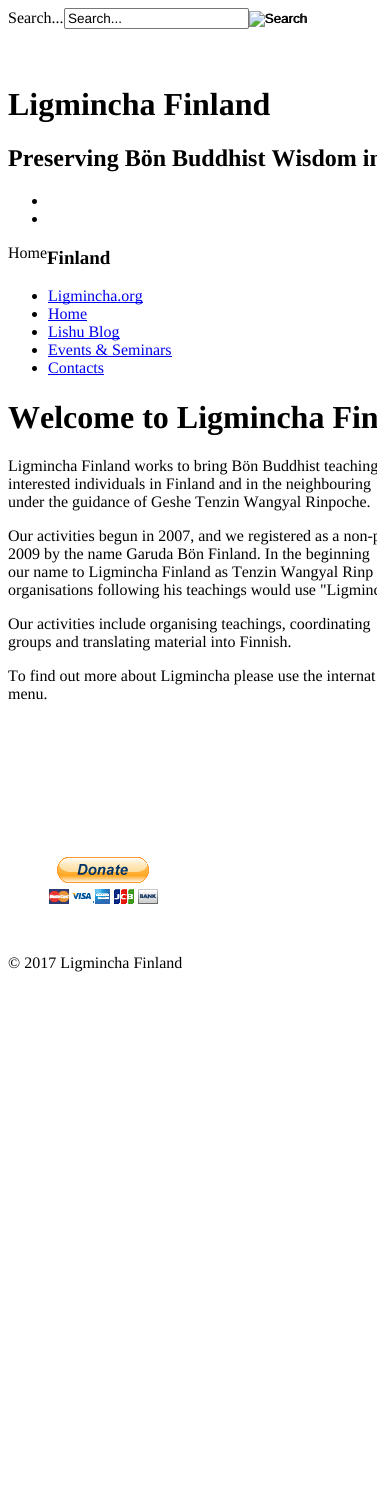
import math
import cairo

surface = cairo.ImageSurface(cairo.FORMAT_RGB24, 377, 1504)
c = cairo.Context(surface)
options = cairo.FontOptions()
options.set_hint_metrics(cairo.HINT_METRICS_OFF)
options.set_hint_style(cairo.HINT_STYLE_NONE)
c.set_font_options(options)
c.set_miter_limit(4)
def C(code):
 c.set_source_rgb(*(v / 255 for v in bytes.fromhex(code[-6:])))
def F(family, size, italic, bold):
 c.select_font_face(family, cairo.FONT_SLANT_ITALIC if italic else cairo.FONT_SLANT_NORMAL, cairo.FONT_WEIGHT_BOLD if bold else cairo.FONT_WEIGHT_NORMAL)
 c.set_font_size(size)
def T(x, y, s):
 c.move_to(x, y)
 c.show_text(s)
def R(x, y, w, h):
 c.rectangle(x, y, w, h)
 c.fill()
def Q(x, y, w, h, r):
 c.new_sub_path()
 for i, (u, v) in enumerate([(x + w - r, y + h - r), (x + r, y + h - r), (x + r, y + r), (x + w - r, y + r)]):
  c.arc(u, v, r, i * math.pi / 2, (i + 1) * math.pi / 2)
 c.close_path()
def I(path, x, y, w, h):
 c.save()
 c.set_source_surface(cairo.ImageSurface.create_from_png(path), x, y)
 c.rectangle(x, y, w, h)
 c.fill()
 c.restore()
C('ffffff')
c.paint()
F('Liberation Serif',16,0,0)
C('000000')
T(8,23,'Search...')
Q(64.5,8.5,184,20,1.5)
C('767676')
c.set_line_width(1)
c.stroke()
F('Liberation Sans',13.5,0,0)
C('000000')
T(68,23,'Search...')
I('1.png',249,11,57,16)
T(265,23,'Search')
F('Liberation Serif',32,0,1)
T(8,115,'Ligmincha Finland')
F('Liberation Serif',24,0,1)
T(8,166,'Preserving Bön Buddhist Wisdom in')
c.new_path()
c.arc(34.5,201.5,2.5,0,2 * math.pi)
c.fill()
c.arc(34.5,219.5,2.5,0,2 * math.pi)
c.fill()
F('Liberation Serif',16,0,0)
T(8,258,'Home')
F('Liberation Serif',19,0,1)
T(47,264,'Finland')
c.new_path()
c.arc(34.5,296.5,2.5,0,2 * math.pi)
c.fill()
C('0000ee')
R(48,302,95,1)
F('Liberation Serif',16,0,0)
T(48,301,'Ligmincha.org')
C('000000')
c.new_path()
c.arc(34.5,314.5,2.5,0,2 * math.pi)
c.fill()
C('0000ee')
T(48,319,'Home')
R(48,320,39,1)
C('000000')
c.new_path()
c.arc(34.5,332.5,2.5,0,2 * math.pi)
c.fill()
C('0000ee')
R(48,338,72,1)
T(48,337,'Lishu Blog')
C('000000')
c.new_path()
c.arc(34.5,350.5,2.5,0,2 * math.pi)
c.fill()
C('0000ee')
T(48,355,'Events & Seminars')
R(48,356,124,1)
C('000000')
c.new_path()
c.arc(34.5,368.5,2.5,0,2 * math.pi)
c.fill()
C('0000ee')
T(48,373,'Contacts')
R(48,374,56,1)
F('Liberation Serif',32,0,1)
C('000000')
T(8,428,'Welcome to Ligmincha Fin')
F('Liberation Serif',16,0,0)
T(8,471,'Ligmincha Finland works to bring Bön Buddhist teaching')
T(8,489,'interested individuals in Finland and in the neighbouring')
T(8,507,'under the guidance of Geshe Tenzin Wangyal Rinpoche.')
T(8,541,'Our activities begun in 2007, and we registered as a non-p')
T(8,559,'2009 by the name Garuda Bön Finland. In the beginning')
T(8,577,'our name to Ligmincha Finland as Tenzin Wangyal Rinp')
T(8,595,'organisations following his teachings would use "Ligminc')
T(8,629,'Our activities include organising teachings, coordinating')
T(8,647,'groups and translating material into Finnish.')
T(8,681,'To find out more about Ligmincha please use the internat')
T(8,699,'menu.')
I('2.png',49,857,109,47)
T(8,968,'© 2017 Ligmincha Finland')
surface.write_to_png('o.png')
